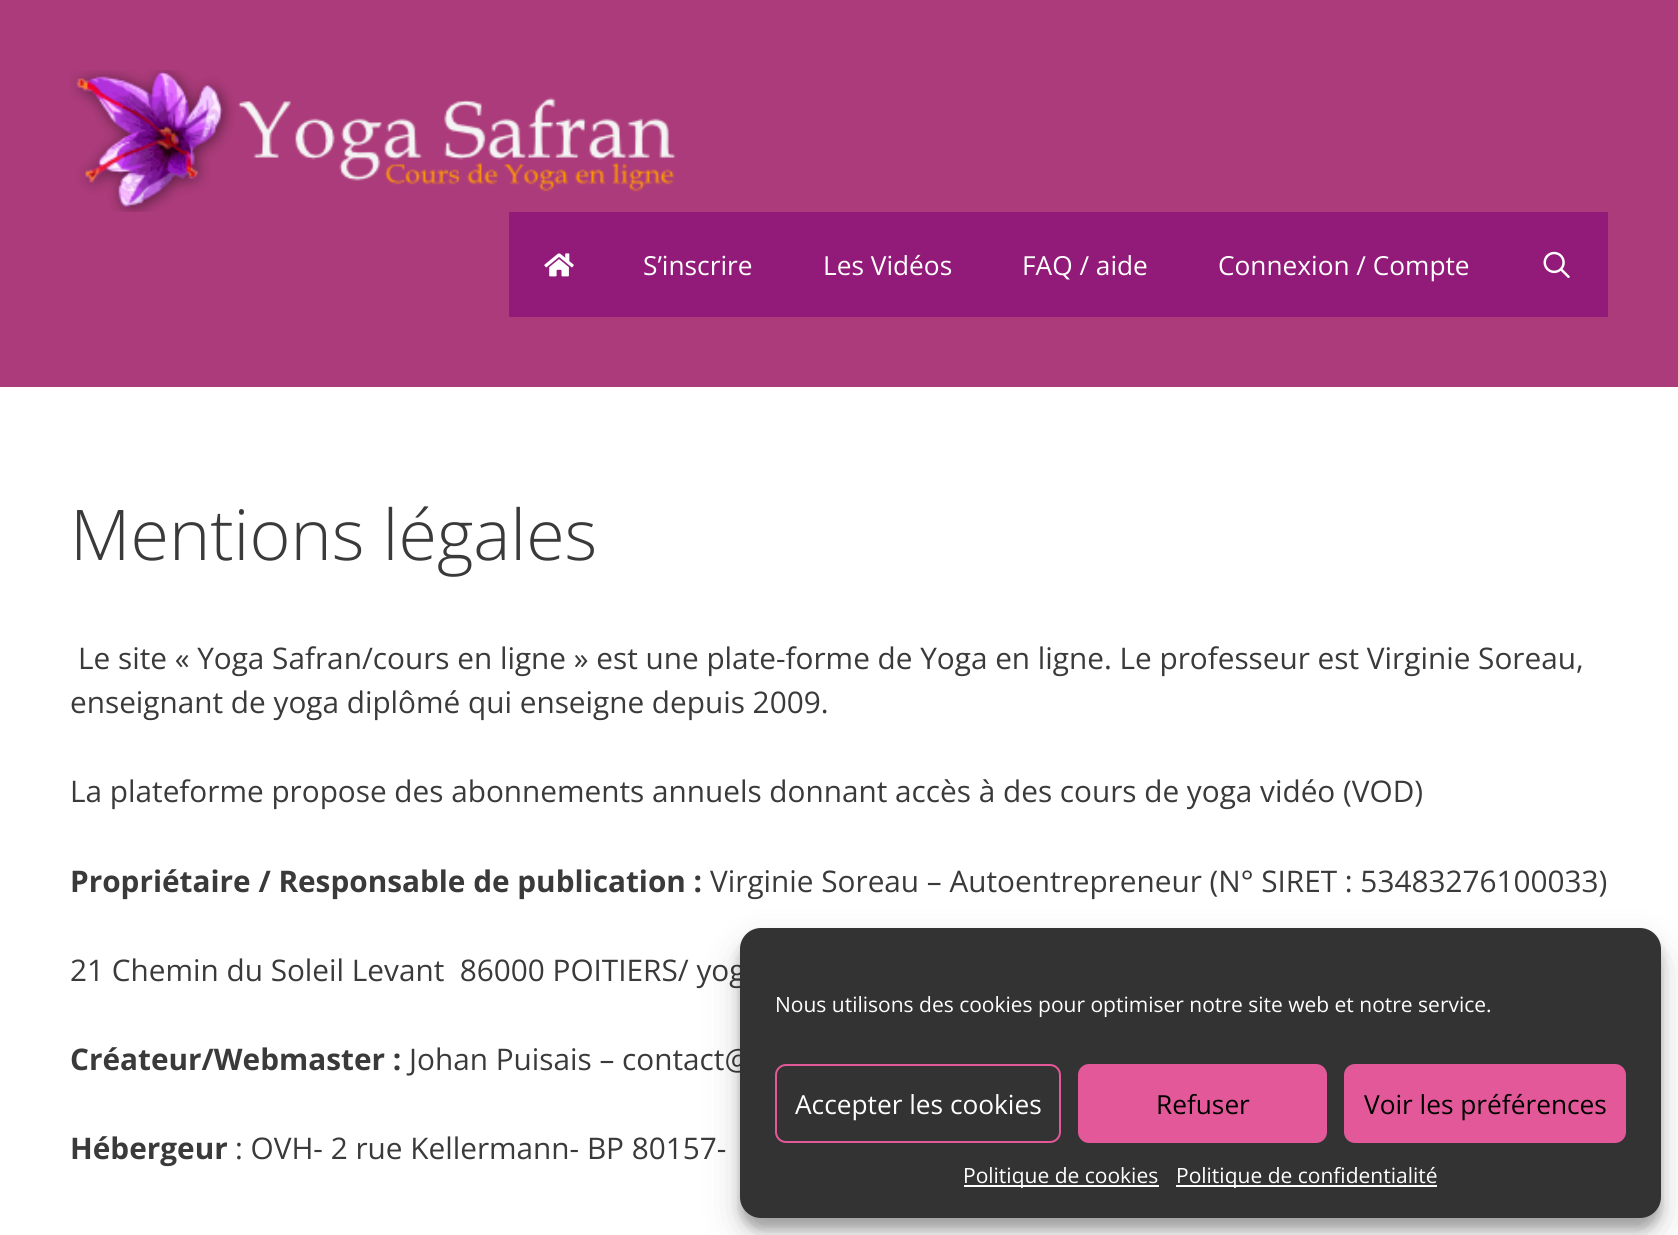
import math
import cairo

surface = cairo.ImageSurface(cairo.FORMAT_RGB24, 1678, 1235)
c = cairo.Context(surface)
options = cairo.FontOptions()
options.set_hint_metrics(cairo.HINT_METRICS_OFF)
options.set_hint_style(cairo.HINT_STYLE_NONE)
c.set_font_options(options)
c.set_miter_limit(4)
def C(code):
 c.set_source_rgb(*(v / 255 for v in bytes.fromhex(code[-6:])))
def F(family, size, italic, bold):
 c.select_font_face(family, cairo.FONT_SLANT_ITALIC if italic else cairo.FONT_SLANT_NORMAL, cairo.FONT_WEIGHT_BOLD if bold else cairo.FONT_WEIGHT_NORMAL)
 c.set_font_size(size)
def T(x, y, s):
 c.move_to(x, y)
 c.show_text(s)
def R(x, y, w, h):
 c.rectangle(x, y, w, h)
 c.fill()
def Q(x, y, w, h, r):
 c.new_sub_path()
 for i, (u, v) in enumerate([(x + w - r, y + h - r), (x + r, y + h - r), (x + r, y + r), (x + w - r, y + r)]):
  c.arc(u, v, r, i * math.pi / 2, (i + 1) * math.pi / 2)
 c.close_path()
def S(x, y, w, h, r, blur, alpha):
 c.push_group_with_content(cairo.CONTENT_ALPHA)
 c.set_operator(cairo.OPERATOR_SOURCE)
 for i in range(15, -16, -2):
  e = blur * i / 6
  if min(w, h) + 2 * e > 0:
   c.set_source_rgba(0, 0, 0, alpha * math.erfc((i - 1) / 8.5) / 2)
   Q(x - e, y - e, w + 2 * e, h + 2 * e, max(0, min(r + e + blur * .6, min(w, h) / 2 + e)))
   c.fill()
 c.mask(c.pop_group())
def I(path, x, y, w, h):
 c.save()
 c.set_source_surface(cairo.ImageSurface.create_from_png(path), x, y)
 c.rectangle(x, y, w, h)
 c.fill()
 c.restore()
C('ffffff')
c.paint()
C('ac3b7b')
R(0,0,1678,387)
I('1.png',70,70,606,142)
C('921b7a')
R(509,212,1099,105)
I('2.png',544,253,30,24)
F('Open Sans',26.25,0,0)
C('ffffff')
T(643,275,'S’inscrire')
T(823,275,'Les Vidéos')
T(1022,275,'FAQ / aide')
T(1218,275,'Connexion / Compte')
I('3.png',1543,251,27,27)
F('Open Sans Light',70,0,0)
C('3a3a3a')
T(70,560,'Mentions légales')
F('Open Sans',29.75,0,0)
T(78,669,'Le site « Yoga Safran/cours en ligne » est une plate-forme de Yoga en ligne. Le professeur est Virginie Soreau,')
T(70,713,'enseignant de yoga diplômé qui enseigne depuis 2009.')
T(70,802,'La plateforme propose des abonnements annuels donnant accès à des cours de yoga vidéo (VOD)')
F('Open Sans',29.75,0,1)
T(70,892,'Propriétaire / Responsable de publication :')
F('Open Sans',29.75,0,0)
T(710,892,'Virginie Soreau – Autoentrepreneur (N° SIRET : 53483276100033)')
T(70,981,'21 Chemin du Soleil Levant  86000 POITIERS/ yog')
F('Open Sans',29.75,0,1)
T(70,1070,'Créateur/Webmaster :')
F('Open Sans',29.75,0,0)
T(409,1070,'Johan Puisais – contact@')
F('Open Sans',29.75,0,1)
T(70,1159,'Hébergeur')
F('Open Sans',29.75,0,0)
T(235,1159,': OVH- 2 rue Kellermann- BP 80157-')
C('000000')
S(740,938,921,291,21,5,.23)
S(740,945,921,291,21,17.5,.19)
C('333333')
Q(740,928,921,290,21)
c.fill()
F('Open Sans',21,0,0)
C('ffffff')
T(775,1012,'Nous utilisons des cookies pour optimiser notre site web et notre service.')
Q(776,1065,284,77,10)
C('e35899')
c.stroke()
F('Open Sans',26.25,0,0)
C('ffffff')
T(795,1114,'Accepter les cookies')
C('e35899')
Q(1079,1065,247,77,10)
c.fill_preserve()
c.stroke()
C('000000')
T(1156,1114,'Refuser')
C('e35899')
Q(1345,1065,280,77,10)
c.fill_preserve()
c.stroke()
C('000000')
T(1364,1114,'Voir les préférences')
C('ffffff')
R(964,1185,195,2)
F('Open Sans',21,0,0)
T(963,1183,'Politique de cookies')
R(1176,1185,261,2)
T(1176,1183,'Politique de confidentialité')
surface.write_to_png('o.png')
